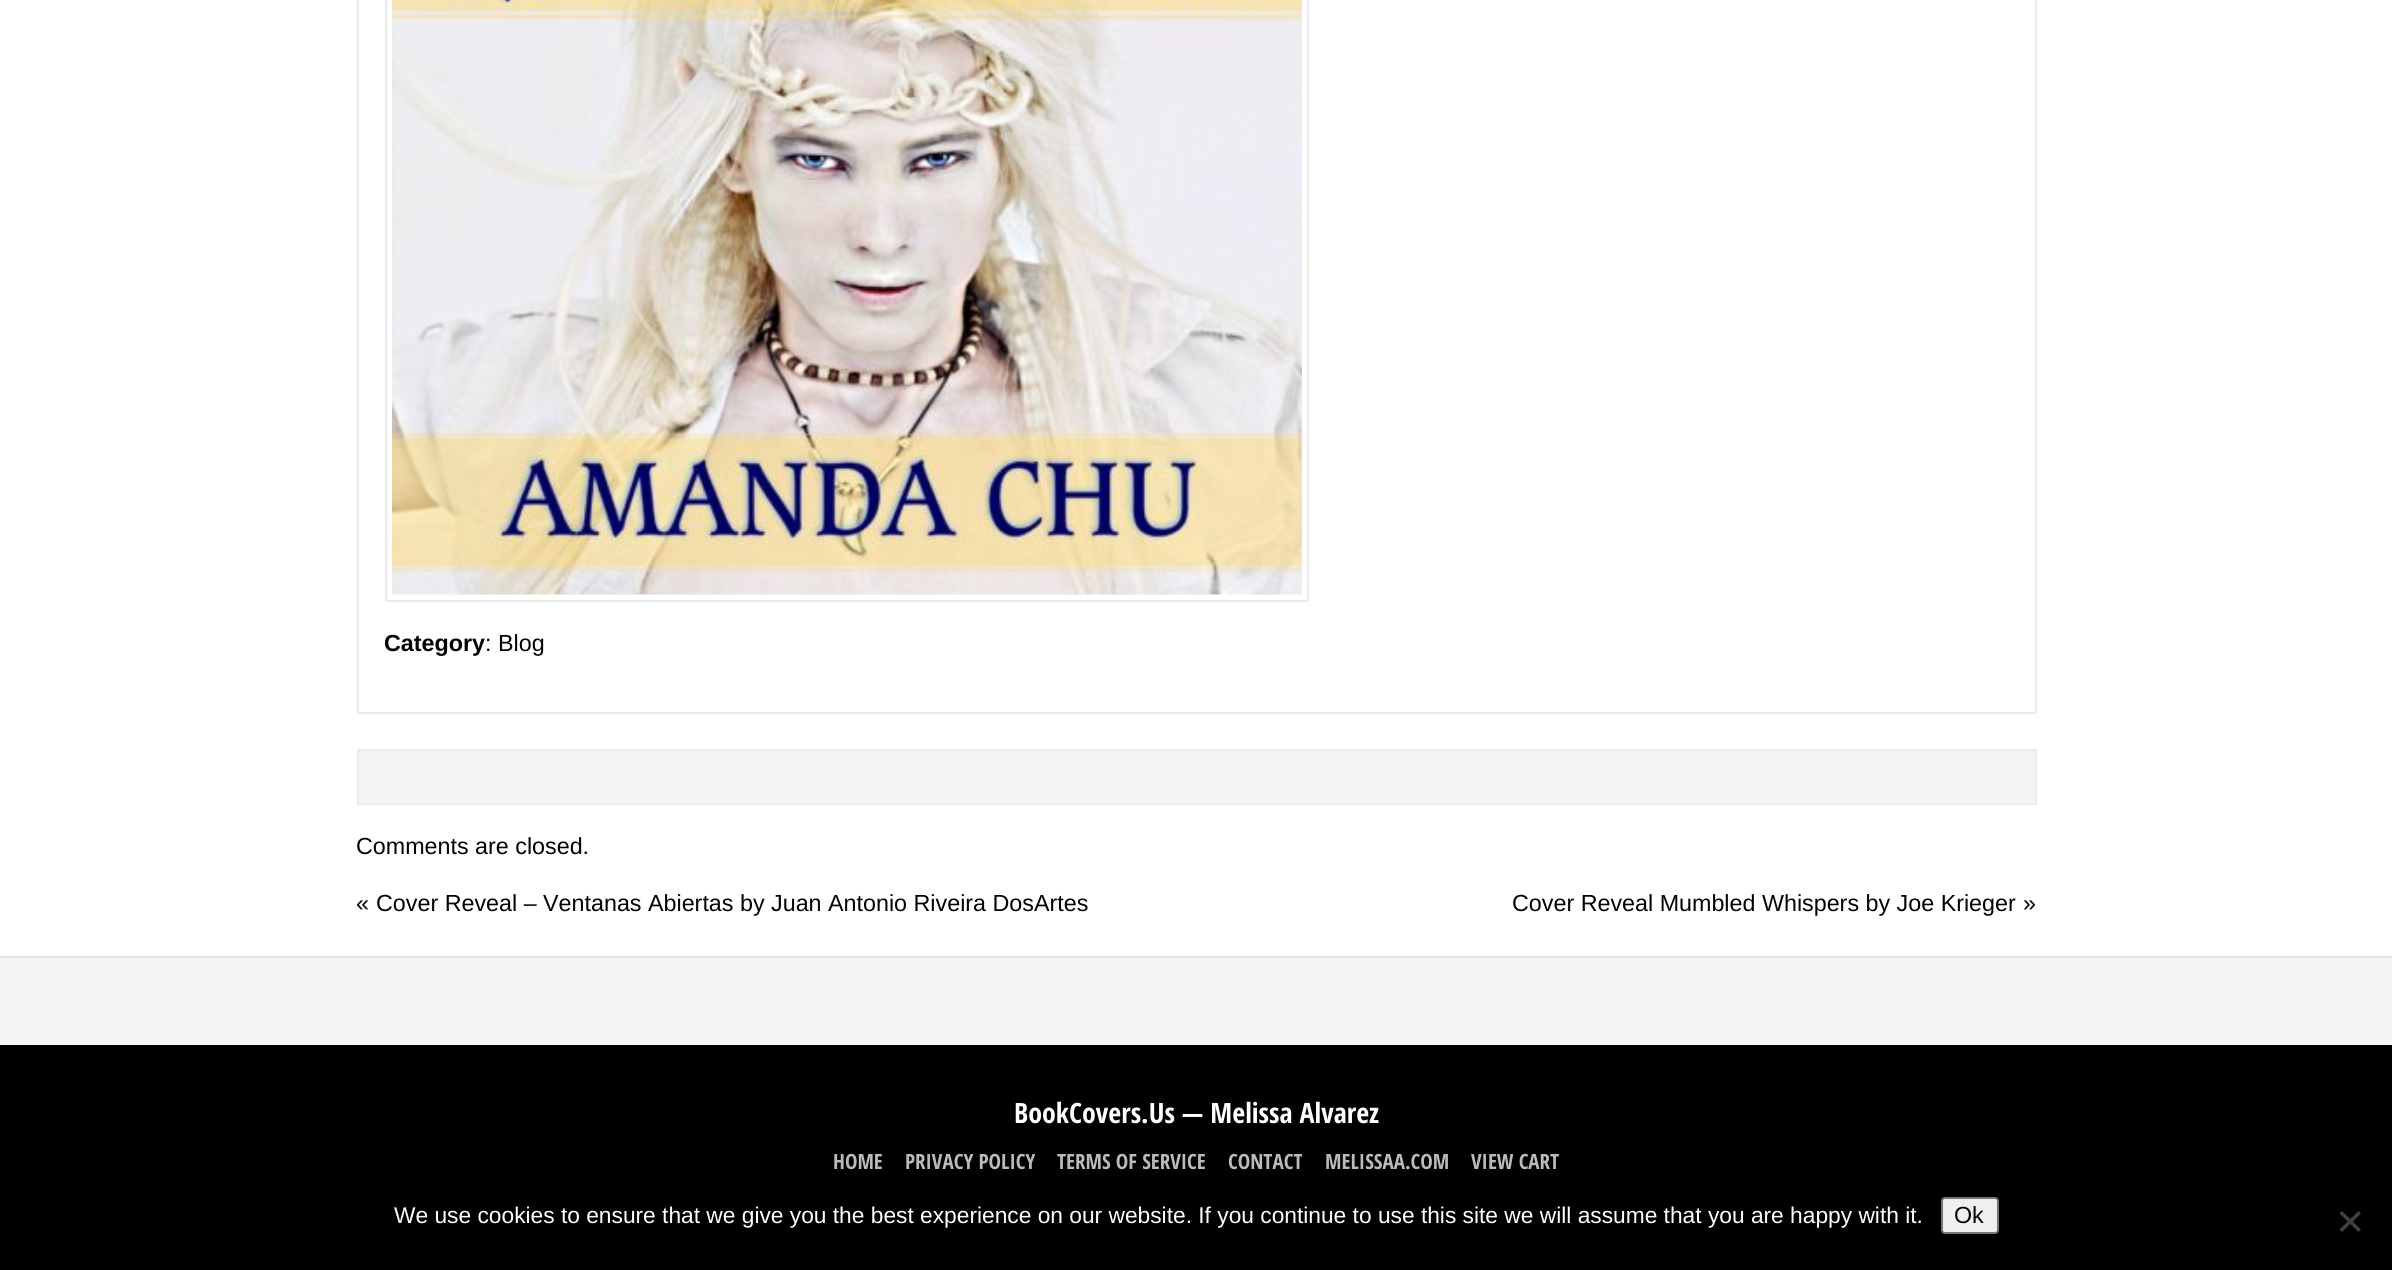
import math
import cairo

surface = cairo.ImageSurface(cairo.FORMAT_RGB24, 2392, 1270)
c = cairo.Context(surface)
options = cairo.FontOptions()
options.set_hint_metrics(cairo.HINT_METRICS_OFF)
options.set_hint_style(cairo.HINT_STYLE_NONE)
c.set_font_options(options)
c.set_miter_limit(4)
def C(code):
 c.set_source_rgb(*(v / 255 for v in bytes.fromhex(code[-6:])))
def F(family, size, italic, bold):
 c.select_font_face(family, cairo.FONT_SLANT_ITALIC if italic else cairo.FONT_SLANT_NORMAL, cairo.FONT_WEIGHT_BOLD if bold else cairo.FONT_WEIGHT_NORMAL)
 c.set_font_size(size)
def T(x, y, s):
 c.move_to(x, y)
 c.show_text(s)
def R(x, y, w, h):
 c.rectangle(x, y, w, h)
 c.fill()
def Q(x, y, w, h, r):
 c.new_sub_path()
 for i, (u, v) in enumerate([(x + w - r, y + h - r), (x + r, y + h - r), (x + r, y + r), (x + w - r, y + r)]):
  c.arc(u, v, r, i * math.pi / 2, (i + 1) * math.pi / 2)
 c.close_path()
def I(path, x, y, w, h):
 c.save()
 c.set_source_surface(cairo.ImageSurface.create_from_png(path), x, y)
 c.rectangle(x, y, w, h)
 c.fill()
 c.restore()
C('ffffff')
c.paint()
c.rectangle(358,-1,1678,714)
C('ebebeb')
c.stroke()
c.rectangle(386,-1,922,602)
c.stroke()
I('1.png',392,0,910,595)
F('Liberation Sans',23.3,0,1)
C('030303')
T(384,651,'Category')
F('Liberation Sans',23.3,0,0)
T(485,651,':')
T(498,651,'Blog')
C('f5f5f5')
c.rectangle(358,750,1678,54)
c.fill_preserve()
C('ebebeb')
c.stroke()
C('030303')
T(356,854,'Comments are closed.')
T(356,911,'«')
T(376,911,'Cover Reveal – Ventanas Abiertas by Juan Antonio Riveira DosArtes')
T(1512,911,'Cover Reveal Mumbled Whispers by Joe Krieger')
T(2023,911,'»')
C('f5f5f5')
R(0,958,2392,87)
C('e5e5e5')
R(0,956,2392,2)
C('000000')
R(0,1045,2392,225)
F('Open Sans Condensed',28,0,1)
C('ffffff')
T(1014,1123,'BookCovers.Us — Melissa Alvarez')
F('Open Sans Condensed',21,0,1)
C('bbbbbb')
T(833,1169,'HOME')
T(905,1169,'PRIVACY POLICY')
T(1057,1169,'TERMS OF SERVICE')
T(1228,1169,'CONTACT')
T(1325,1169,'MELISSAA.COM')
T(1471,1169,'VIEW CART')
F('Liberation Sans',22.75,0,0)
C('ffffff')
T(394,1223,'We use cookies to ensure that we give you the best experience on our website. If you continue to use this site we will assume that you are happy with it.')
C('efefef')
Q(1942,1198,56,35,3)
c.fill_preserve()
C('767676')
c.stroke()
F('Liberation Sans',23.3,0,0)
C('030303')
T(1954,1223,'Ok')
C('404040')
c.new_path()
c.move_to(2358.5,1211)
c.line_to(2361,1213.5)
c.line_to(2342,1232)
c.line_to(2339.5,1229.5)
c.close_path()
c.fill()
c.new_path()
c.move_to(2339.5,1213.5)
c.line_to(2342,1211)
c.line_to(2361,1229.5)
c.line_to(2358.5,1232)
c.close_path()
c.fill()
surface.write_to_png('o.png')
